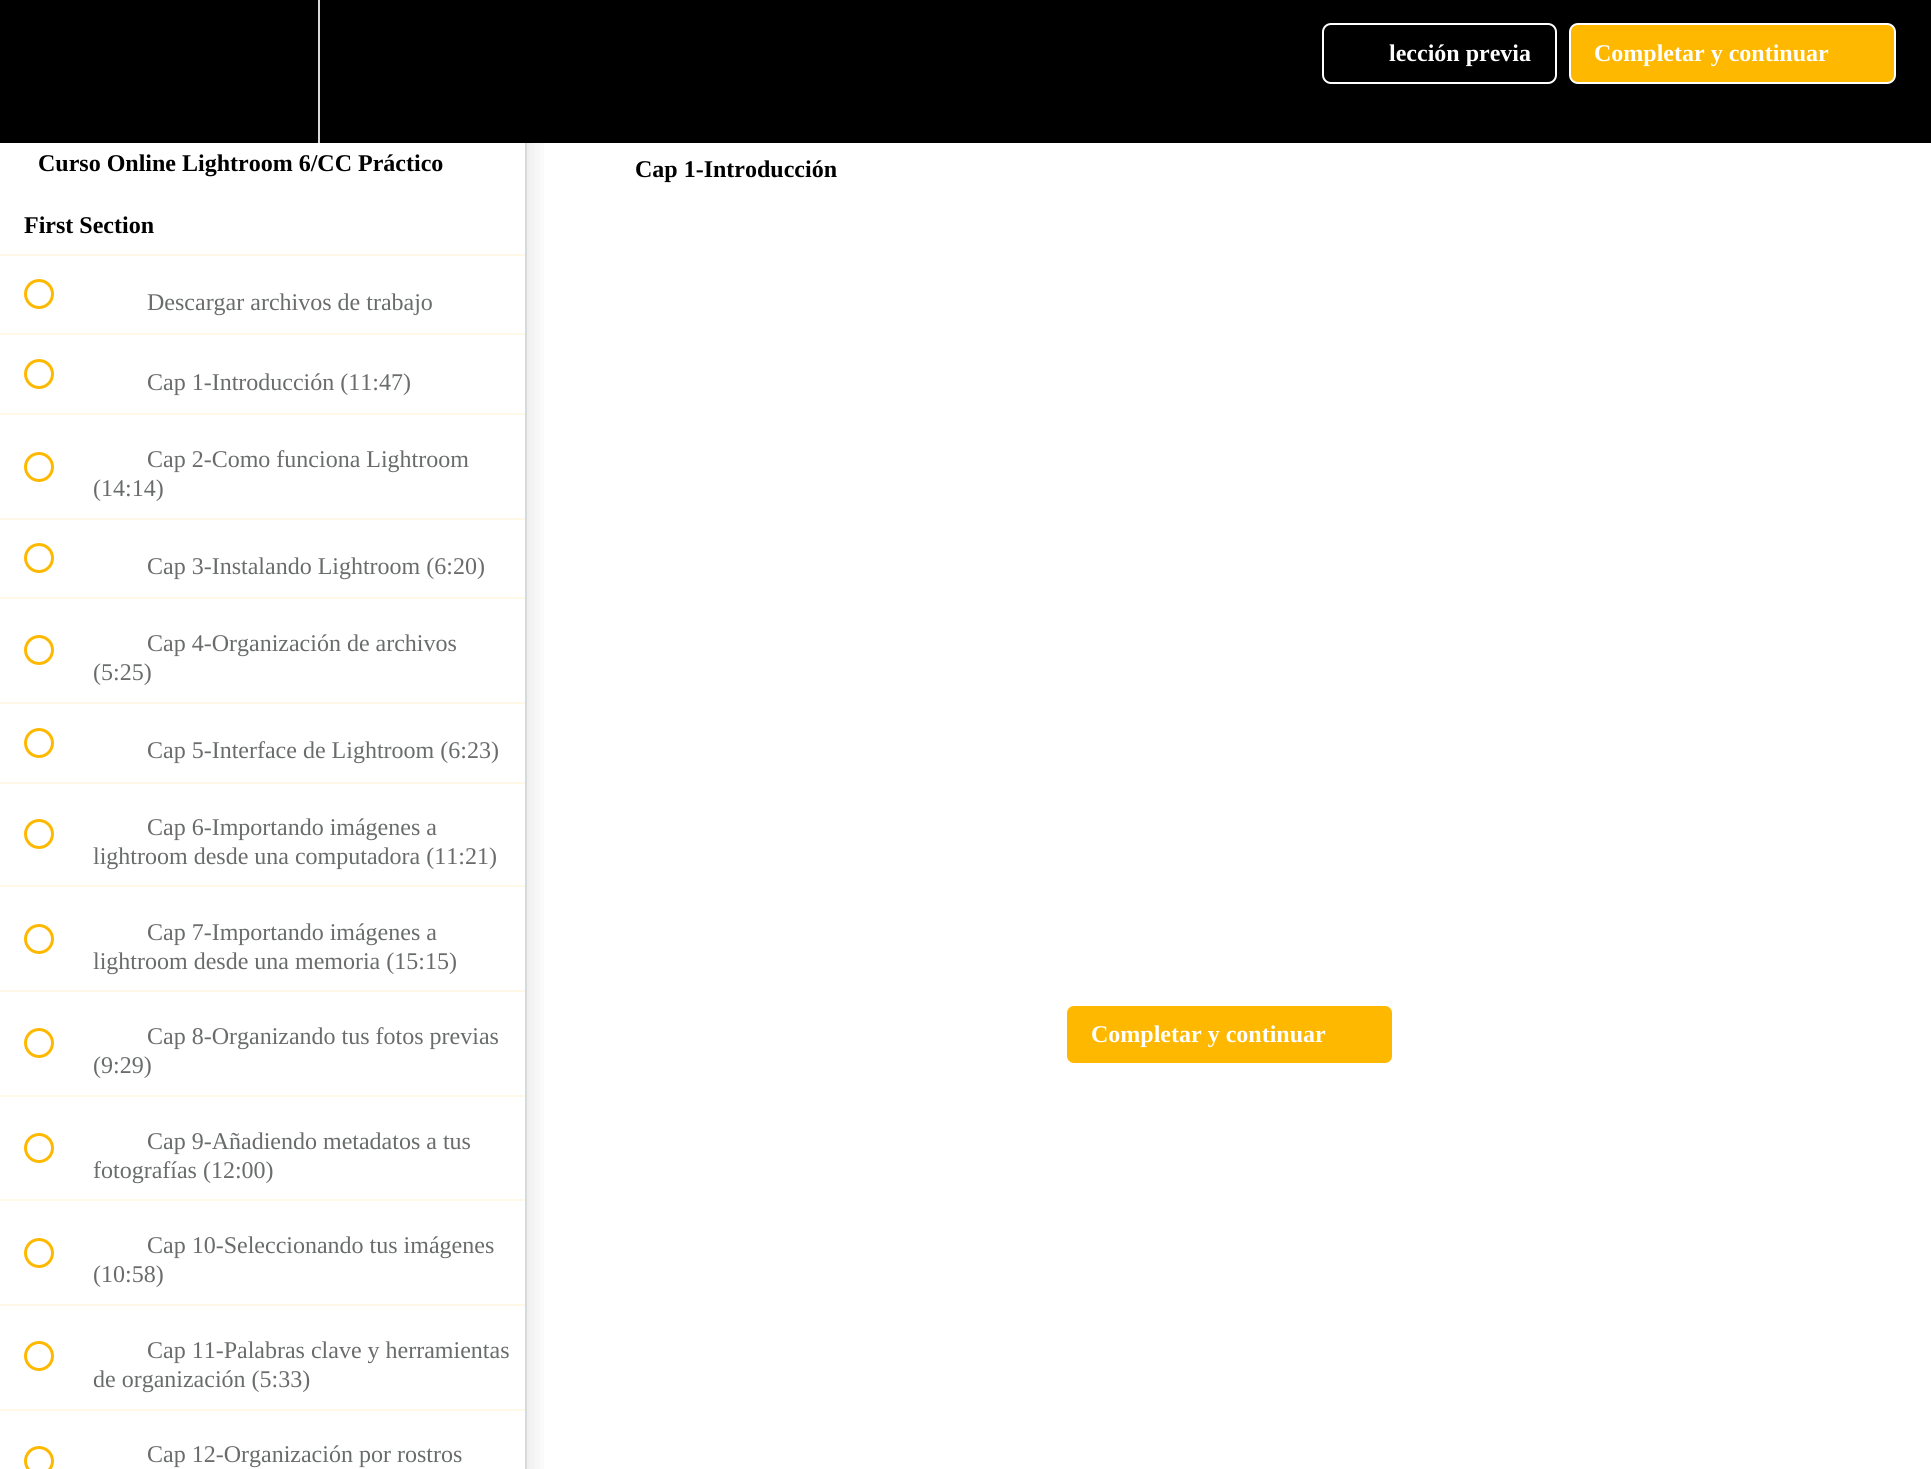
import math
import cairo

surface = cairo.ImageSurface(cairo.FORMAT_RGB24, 1931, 1469)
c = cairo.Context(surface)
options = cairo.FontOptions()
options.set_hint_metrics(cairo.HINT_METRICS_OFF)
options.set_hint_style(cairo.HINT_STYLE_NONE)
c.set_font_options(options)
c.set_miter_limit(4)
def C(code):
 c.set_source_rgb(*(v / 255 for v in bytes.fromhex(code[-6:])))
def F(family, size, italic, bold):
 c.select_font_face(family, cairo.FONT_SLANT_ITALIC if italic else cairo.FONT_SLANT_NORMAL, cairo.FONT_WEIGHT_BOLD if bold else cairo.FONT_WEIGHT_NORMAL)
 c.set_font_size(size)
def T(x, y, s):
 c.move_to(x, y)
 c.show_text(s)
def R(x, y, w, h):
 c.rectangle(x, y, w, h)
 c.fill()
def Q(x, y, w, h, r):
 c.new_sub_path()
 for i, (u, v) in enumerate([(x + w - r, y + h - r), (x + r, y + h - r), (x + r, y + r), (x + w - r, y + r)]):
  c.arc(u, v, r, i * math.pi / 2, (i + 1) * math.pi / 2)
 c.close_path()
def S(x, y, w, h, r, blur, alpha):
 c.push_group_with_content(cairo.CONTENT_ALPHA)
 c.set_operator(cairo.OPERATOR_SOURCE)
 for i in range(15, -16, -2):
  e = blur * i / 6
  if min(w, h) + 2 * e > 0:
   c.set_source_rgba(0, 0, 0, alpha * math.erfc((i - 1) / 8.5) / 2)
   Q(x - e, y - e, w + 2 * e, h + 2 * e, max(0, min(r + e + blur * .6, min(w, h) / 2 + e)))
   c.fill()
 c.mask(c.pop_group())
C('ffffff')
c.paint()
c.save()
c.rectangle(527,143,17,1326)
c.clip()
C('20272d')
S(0,122,527,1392,0,15,.15)
c.restore()
C('000000')
R(0,0,1931,143)
C('d7dadb')
R(318,0,2,143)
Q(1323,24,233,59,8)
C('ffffff')
c.stroke()
F('Liberation Serif',24,0,1)
T(1389,61,'lección previa')
C('ffb800')
Q(1570,24,325,59,8)
c.fill_preserve()
C('ffffff')
c.stroke()
T(1594,61,'Completar y continuar')
C('d7dadb')
R(525,143,2,1326)
C('000000')
T(38,171,'Curso Online Lightroom 6/CC Práctico')
C('fff8e6')
R(0,254,525,2)
C('000000')
T(24,233,'First Section')
C('fff8e6')
R(0,333,525,2)
c.new_path()
c.arc(39,294,13.5,0,2 * math.pi)
C('ffb800')
c.set_line_width(3)
c.stroke()
F('Liberation Serif',24,0,0)
C('6a6c6c')
T(147,310,'Descargar archivos de trabajo')
C('fff8e6')
R(0,413,525,2)
c.new_path()
c.arc(39,374,13.5,0,2 * math.pi)
C('ffb800')
c.stroke()
C('6a6c6c')
T(147,390,'Cap 1-Introducción (11:47)')
C('fff8e6')
R(0,518,525,2)
c.new_path()
c.arc(39,467,13.5,0,2 * math.pi)
C('ffb800')
c.stroke()
C('6a6c6c')
T(147,467,'Cap 2-Como funciona Lightroom')
T(93,496,'(14:14)')
C('fff8e6')
R(0,597,525,2)
c.new_path()
c.arc(39,558,13.5,0,2 * math.pi)
C('ffb800')
c.stroke()
C('6a6c6c')
T(147,574,'Cap 3-Instalando Lightroom (6:20)')
C('fff8e6')
R(0,702,525,2)
c.new_path()
c.arc(39,650,13.5,0,2 * math.pi)
C('ffb800')
c.stroke()
C('6a6c6c')
T(147,651,'Cap 4-Organización de archivos')
T(93,680,'(5:25)')
C('fff8e6')
R(0,782,525,2)
c.new_path()
c.arc(39,743,13.5,0,2 * math.pi)
C('ffb800')
c.stroke()
C('6a6c6c')
T(147,758,'Cap 5-Interface de Lightroom (6:23)')
C('fff8e6')
R(0,885,525,2)
c.new_path()
c.arc(39,834,13.5,0,2 * math.pi)
C('ffb800')
c.stroke()
C('6a6c6c')
T(147,835,'Cap 6-Importando imágenes a')
T(93,864,'lightroom desde una computadora (11:21)')
C('fff8e6')
R(0,990,525,2)
c.new_path()
c.arc(39,939,13.5,0,2 * math.pi)
C('ffb800')
c.stroke()
C('6a6c6c')
T(147,940,'Cap 7-Importando imágenes a')
T(93,969,'lightroom desde una memoria (15:15)')
C('fff8e6')
R(0,1095,525,2)
c.new_path()
c.arc(39,1043,13.5,0,2 * math.pi)
C('ffb800')
c.stroke()
C('6a6c6c')
T(147,1044,'Cap 8-Organizando tus fotos previas')
T(93,1073,'(9:29)')
C('fff8e6')
R(0,1199,525,2)
c.new_path()
c.arc(39,1148,13.5,0,2 * math.pi)
C('ffb800')
c.stroke()
C('6a6c6c')
T(147,1149,'Cap 9-Añadiendo metadatos a tus')
T(93,1178,'fotografías (12:00)')
C('fff8e6')
R(0,1304,525,2)
c.new_path()
c.arc(39,1253,13.5,0,2 * math.pi)
C('ffb800')
c.stroke()
C('6a6c6c')
T(147,1253,'Cap 10-Seleccionando tus imágenes')
T(93,1282,'(10:58)')
C('fff8e6')
R(0,1409,525,2)
c.new_path()
c.arc(39,1356,13.5,0,2 * math.pi)
C('ffb800')
c.stroke()
C('6a6c6c')
T(147,1358,'Cap 11-Palabras clave y herramientas')
T(93,1387,'de organización (5:33)')
c.new_path()
c.arc(39,1461,13.5,0,2 * math.pi)
C('ffb800')
c.stroke()
C('6a6c6c')
T(147,1462,'Cap 12-Organización por rostros')
F('Liberation Serif',24,0,1)
C('000000')
T(635,177,'Cap 1-Introducción')
C('ffb800')
Q(1066,1005,327,59,8)
c.fill_preserve()
C('ffffff')
c.set_line_width(2)
c.stroke()
T(1091,1042,'Completar y continuar')
surface.write_to_png('o.png')
